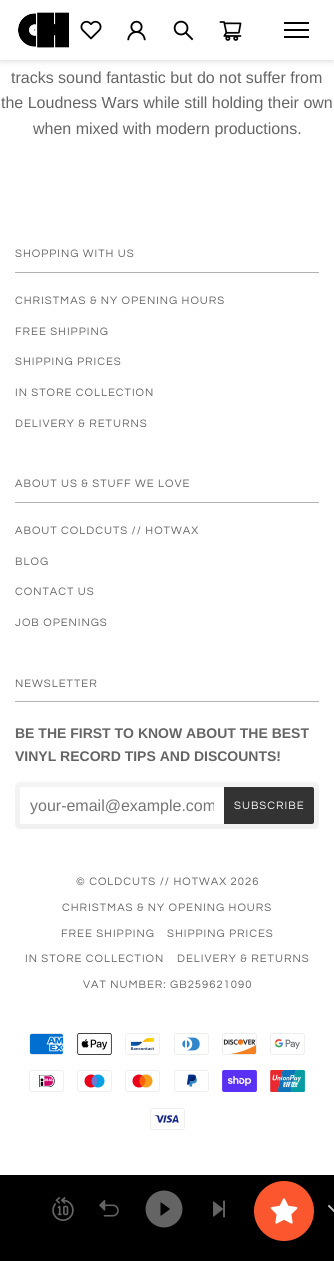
import math
import cairo

surface = cairo.ImageSurface(cairo.FORMAT_RGB24, 334, 1261)
c = cairo.Context(surface)
options = cairo.FontOptions()
options.set_hint_metrics(cairo.HINT_METRICS_OFF)
options.set_hint_style(cairo.HINT_STYLE_NONE)
c.set_font_options(options)
c.set_miter_limit(4)
def C(code):
 c.set_source_rgb(*(v / 255 for v in bytes.fromhex(code[-6:])))
def F(family, size, italic, bold):
 c.select_font_face(family, cairo.FONT_SLANT_ITALIC if italic else cairo.FONT_SLANT_NORMAL, cairo.FONT_WEIGHT_BOLD if bold else cairo.FONT_WEIGHT_NORMAL)
 c.set_font_size(size)
def T(x, y, s):
 c.move_to(x, y)
 c.show_text(s)
def L(x, y, s, letter, word):
 c.move_to(x, y)
 for ch in s:
  c.show_text(ch)
  c.rel_move_to(letter + word * (ch == ' '), 0)
def R(x, y, w, h):
 c.rectangle(x, y, w, h)
 c.fill()
def Q(x, y, w, h, r):
 c.new_sub_path()
 for i, (u, v) in enumerate([(x + w - r, y + h - r), (x + r, y + h - r), (x + r, y + r), (x + w - r, y + r)]):
  c.arc(u, v, r, i * math.pi / 2, (i + 1) * math.pi / 2)
 c.close_path()
def S(x, y, w, h, r, blur, alpha):
 c.push_group_with_content(cairo.CONTENT_ALPHA)
 c.set_operator(cairo.OPERATOR_SOURCE)
 for i in range(15, -16, -2):
  e = blur * i / 6
  if min(w, h) + 2 * e > 0:
   c.set_source_rgba(0, 0, 0, alpha * math.erfc((i - 1) / 8.5) / 2)
   Q(x - e, y - e, w + 2 * e, h + 2 * e, max(0, min(r + e + blur * .6, min(w, h) / 2 + e)))
   c.fill()
 c.mask(c.pop_group())
def I(path, x, y, w, h):
 c.save()
 c.set_source_surface(cairo.ImageSurface.create_from_png(path), x, y)
 c.rectangle(x, y, w, h)
 c.fill()
 c.restore()
C('ffffff')
c.paint()
C('000000')
S(1,2,332,58,0,3.5,.2)
C('ffffff')
R(0,0,334,60)
I('1.png',18,12,51,36)
I('2.png',80,20,22,20)
I('3.png',127,20,19,21)
I('4.png',173,20,21,21)
I('5.png',219,21,23,20)
C('000000')
R(284,22,25,2)
R(284,29,25,2)
R(284,36,25,2)
F('Liberation Sans',16,0,0)
C('656565')
T(11,83,'tracks sound fantastic but do not suffer from')
T(1,108,'the Loudness Wars while still holding their own')
T(33,134,'when mixed with modern productions.')
F('Questrial',11.25,0,0)
L(15,257,'SHOPPING WITH US',1,0)
C('b2b2b2')
R(15,272,304,1)
C('656565')
L(15,304,'CHRISTMAS & NY OPENING HOURS',1,0)
L(15,335,'FREE SHIPPING',1,0)
L(15,365,'SHIPPING PRICES',1,0)
L(15,396,'IN STORE COLLECTION',1,0)
L(15,427,'DELIVERY & RETURNS',1,0)
L(15,487,'ABOUT US & STUFF WE LOVE',1,0)
C('b2b2b2')
R(15,502,304,1)
C('656565')
L(15,534,'ABOUT COLDCUTS // HOTWAX',1,0)
L(15,565,'BLOG',1,0)
L(15,595,'CONTACT US',1,0)
L(15,626,'JOB OPENINGS',1,0)
L(15,687,'NEWSLETTER',1,0)
C('b2b2b2')
R(15,701,304,1)
F('Liberation Sans',14,0,1)
C('656565')
T(15,738,'BE THE FIRST TO KNOW ABOUT THE BEST')
T(15,761,'VINYL RECORD TIPS AND DISCOUNTS!')
gradient = cairo.LinearGradient(167,782,167,829)
gradient.add_color_stop_rgba(0,0.957,0.957,0.957,1)
gradient.add_color_stop_rgba(.85,0.945,0.945,0.945,1)
c.set_source(gradient)
Q(15,782,304,47,5)
c.fill()
C('ffffff')
c.new_path()
c.move_to(22,787)
c.line_to(224,787)
c.line_to(224,824)
c.line_to(22,824)
c.curve_to(21,824,20,823,20,822)
c.line_to(20,789)
c.curve_to(20,788,21,787,22,787)
c.close_path()
c.fill()
c.save()
c.rectangle(30,797,184,18)
c.clip()
F('Liberation Sans',16,0,0)
C('757575')
T(30,811,'your-email@example.com')
c.restore()
C('333333')
c.new_path()
c.move_to(224,787)
c.line_to(312,787)
c.curve_to(313,787,314,788,314,789)
c.line_to(314,822)
c.curve_to(314,823,313,824,312,824)
c.line_to(224,824)
c.close_path()
c.fill()
F('Questrial',11.25,0,0)
C('ffffff')
L(234,809,'SUBSCRIBE',1,0)
C('656565')
L(76,885,'© COLDCUTS // HOTWAX 2026',1,0)
L(62,911,'CHRISTMAS & NY OPENING HOURS',1,0)
L(61,937,'FREE SHIPPING',1,0)
L(167,937,'SHIPPING PRICES',1,0)
L(25,962,'IN STORE COLLECTION',1,0)
L(177,962,'DELIVERY & RETURNS',1,0)
L(83,988,'VAT NUMBER: GB259621090',1,0)
I('6.png',29,1033,35,22)
I('7.png',77,1033,35,22)
I('8.png',125,1033,35,22)
I('9.png',174,1033,35,22)
I('10.png',222,1033,35,22)
I('11.png',270,1033,35,22)
I('12.png',29,1070,35,22)
I('13.png',77,1070,35,22)
I('14.png',125,1070,35,22)
I('15.png',174,1070,35,22)
I('16.png',222,1070,35,22)
I('17.png',270,1070,35,22)
I('18.png',150,1108,35,22)
C('000000')
c.rectangle(-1,1176,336,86)
c.fill_preserve()
c.stroke()
I('19.png',52,1197,22,24)
I('20.png',99,1200,20,17)
I('21.png',145,1190,38,38)
I('22.png',213,1200,12,18)
I('23.png',254,1206,1,8)
c.new_path()
c.move_to(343,1206)
c.line_to(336,1213)
c.line_to(329,1206)
C('bebebe')
c.set_line_cap(cairo.LINE_CAP_ROUND)
c.set_line_join(cairo.LINE_JOIN_ROUND)
c.stroke()
C('fb572e')
c.arc(284,1211,30,0,2 * math.pi)
c.fill()
I('24.png',270,1198,28,26)
surface.write_to_png('o.png')
